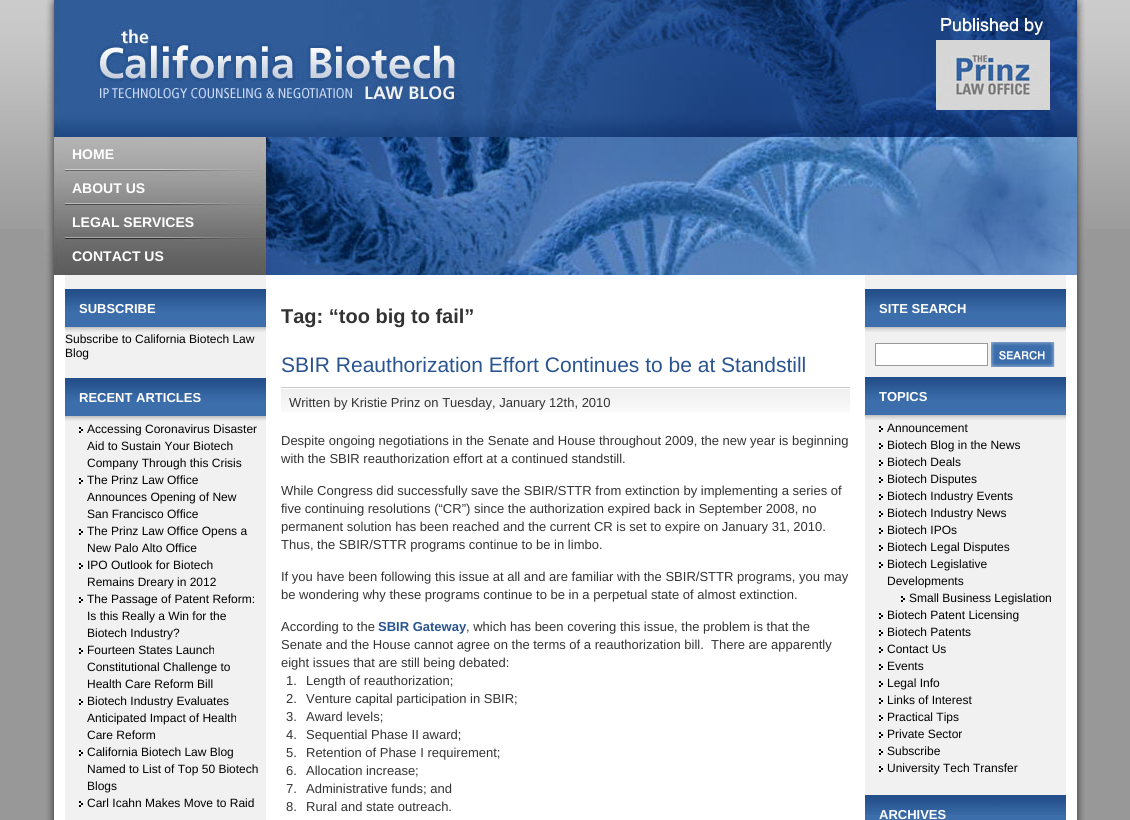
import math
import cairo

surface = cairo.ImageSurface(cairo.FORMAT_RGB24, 1130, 820)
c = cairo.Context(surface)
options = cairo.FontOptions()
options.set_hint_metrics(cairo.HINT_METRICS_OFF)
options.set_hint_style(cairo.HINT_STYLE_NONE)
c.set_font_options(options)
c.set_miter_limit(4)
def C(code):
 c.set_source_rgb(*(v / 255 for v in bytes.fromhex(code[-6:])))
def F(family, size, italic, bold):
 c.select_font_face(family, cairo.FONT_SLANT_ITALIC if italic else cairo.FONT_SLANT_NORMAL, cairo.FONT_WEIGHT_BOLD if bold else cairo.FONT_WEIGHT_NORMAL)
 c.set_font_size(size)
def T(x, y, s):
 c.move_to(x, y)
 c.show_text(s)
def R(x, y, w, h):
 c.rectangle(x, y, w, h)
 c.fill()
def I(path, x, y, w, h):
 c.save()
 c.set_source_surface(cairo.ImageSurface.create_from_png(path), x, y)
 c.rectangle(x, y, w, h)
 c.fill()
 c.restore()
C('989898')
c.paint()
I('1.png',0,0,1130,229)
I('2.png',44,275,1043,545)
I('3.png',44,0,1043,137)
I('4.png',44,137,1043,138)
F('Liberation Sans',14,0,1)
C('ffffff')
T(72,159,'HOME')
T(72,193,'ABOUT US')
T(72,227,'LEGAL SERVICES')
T(72,261,'CONTACT US')
I('5.png',65,289,201,43)
F('Liberation Sans',13,0,1)
T(79,313,'SUBSCRIBE')
F('Liberation Sans',12,0,0)
C('000000')
T(65,343,'Subscribe to California Biotech Law')
T(65,357,'Blog')
I('5.png',65,378,201,43)
F('Liberation Sans',13,0,1)
C('ffffff')
T(79,402,'RECENT ARTICLES')
I('6.png',79,427,4,6)
F('Liberation Sans',12,0,0)
C('000000')
T(87,433,'Accessing Coronavirus Disaster')
T(87,450,'Aid to Sustain Your Biotech')
T(87,467,'Company Through this Crisis')
I('6.png',79,478,4,6)
T(87,484,'The Prinz Law Office')
T(87,501,'Announces Opening of New')
T(87,518,'San Francisco Office')
I('6.png',79,529,4,6)
T(87,535,'The Prinz Law Office Opens a')
T(87,552,'New Palo Alto Office')
I('6.png',79,563,4,6)
T(87,569,'IPO Outlook for Biotech')
T(87,586,'Remains Dreary in 2012')
I('6.png',79,597,4,6)
T(87,603,'The Passage of Patent Reform:')
T(87,620,'Is this Really a Win for the')
T(87,637,'Biotech Industry?')
I('6.png',79,648,4,6)
T(87,654,'Fourteen States Launch')
T(87,671,'Constitutional Challenge to')
T(87,688,'Health Care Reform Bill')
I('6.png',79,699,4,6)
T(87,705,'Biotech Industry Evaluates')
T(87,722,'Anticipated Impact of Health')
T(87,739,'Care Reform')
I('6.png',79,750,4,6)
T(87,756,'California Biotech Law Blog')
T(87,773,'Named to List of Top 50 Biotech')
T(87,790,'Blogs')
I('6.png',79,801,4,6)
T(87,807,'Carl Icahn Makes Move to Raid')
F('Liberation Sans',20,0,1)
C('333333')
T(281,323,'Tag: “too big to fail”')
F('Liberation Sans',21,0,0)
C('295490')
T(281,372,'SBIR Reauthorization Effort Continues to be at Standstill')
I('7.png',281,387,569,25)
F('Liberation Sans',13,0,0)
C('333333')
T(289,407,'Written by Kristie Prinz on Tuesday, January 12th, 2010')
T(281,445,'Despite ongoing negotiations in the Senate and House throughout 2009, the new year is beginning')
T(281,463,'with the SBIR reauthorization effort at a continued standstill.')
T(281,495,'While Congress did successfully save the SBIR/STTR from extinction by implementing a series of')
T(281,513,'five continuing resolutions (“CR”) since the authorization expired back in September 2008, no')
T(281,531,'permanent solution has been reached and the current CR is set to expire on January 31, 2010.')
T(281,549,'Thus, the SBIR/STTR programs continue to be in limbo.')
T(281,581,'If you have been following this issue at all and are familiar with the SBIR/STTR programs, you may')
T(281,599,'be wondering why these programs continue to be in a perpetual state of almost extinction.')
T(281,631,'According to the')
F('Liberation Sans',13,0,1)
C('295490')
T(378,631,'SBIR Gateway')
F('Liberation Sans',13,0,0)
C('333333')
T(466,631,', which has been covering this issue, the problem is that the')
T(281,649,'Senate and the House cannot agree on the terms of a reauthorization bill.  There are apparently')
T(281,667,'eight issues that are still being debated:')
T(286,685,'1.')
T(306,685,'Length of reauthorization;')
T(286,703,'2.')
T(306,703,'Venture capital participation in SBIR;')
T(286,721,'3.')
T(306,721,'Award levels;')
T(286,739,'4.')
T(306,739,'Sequential Phase II award;')
T(286,757,'5.')
T(306,757,'Retention of Phase I requirement;')
T(286,775,'6.')
T(306,775,'Allocation increase;')
T(286,793,'7.')
T(306,793,'Administrative funds; and')
T(286,811,'8.')
T(306,811,'Rural and state outreach.')
I('5.png',865,289,201,43)
F('Liberation Sans',13,0,1)
C('ffffff')
T(879,313,'SITE SEARCH')
c.rectangle(875.5,343.5,112,22)
c.fill_preserve()
C('999999')
c.set_line_width(1)
c.stroke()
I('8.png',991,342,64,25)
I('5.png',865,377,201,43)
C('ffffff')
T(879,401,'TOPICS')
I('6.png',879,426,4,6)
F('Liberation Sans',12,0,0)
C('000000')
T(887,432,'Announcement')
I('6.png',879,443,4,6)
T(887,449,'Biotech Blog in the News')
I('6.png',879,460,4,6)
T(887,466,'Biotech Deals')
I('6.png',879,477,4,6)
T(887,483,'Biotech Disputes')
I('6.png',879,494,4,6)
T(887,500,'Biotech Industry Events')
I('6.png',879,511,4,6)
T(887,517,'Biotech Industry News')
I('6.png',879,528,4,6)
T(887,534,'Biotech IPOs')
I('6.png',879,545,4,6)
T(887,551,'Biotech Legal Disputes')
I('6.png',879,562,4,6)
T(887,568,'Biotech Legislative')
T(887,585,'Developments')
I('6.png',901,596,4,6)
T(909,602,'Small Business Legislation')
I('6.png',879,613,4,6)
T(887,619,'Biotech Patent Licensing')
I('6.png',879,630,4,6)
T(887,636,'Biotech Patents')
I('6.png',879,647,4,6)
T(887,653,'Contact Us')
I('6.png',879,664,4,6)
T(887,670,'Events')
I('6.png',879,681,4,6)
T(887,687,'Legal Info')
I('6.png',879,698,4,6)
T(887,704,'Links of Interest')
I('6.png',879,715,4,6)
T(887,721,'Practical Tips')
I('6.png',879,732,4,6)
T(887,738,'Private Sector')
I('6.png',879,749,4,6)
T(887,755,'Subscribe')
I('6.png',879,766,4,6)
T(887,772,'University Tech Transfer')
C('3c6eab')
R(865,815,201,5)
I('9.png',865,795,201,20)
F('Liberation Sans',13,0,1)
C('ffffff')
T(879,819,'ARCHIVES')
surface.write_to_png('o.png')
